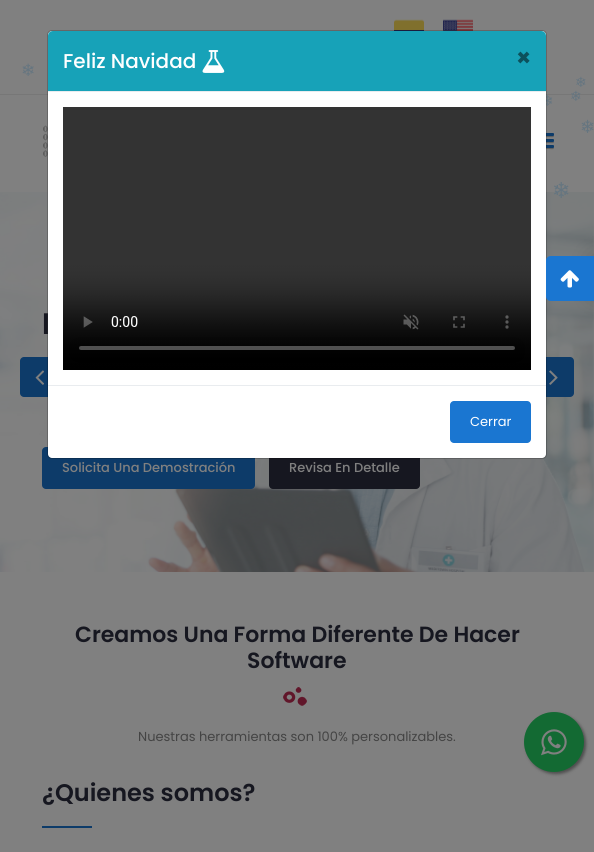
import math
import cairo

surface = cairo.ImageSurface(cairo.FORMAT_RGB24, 594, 852)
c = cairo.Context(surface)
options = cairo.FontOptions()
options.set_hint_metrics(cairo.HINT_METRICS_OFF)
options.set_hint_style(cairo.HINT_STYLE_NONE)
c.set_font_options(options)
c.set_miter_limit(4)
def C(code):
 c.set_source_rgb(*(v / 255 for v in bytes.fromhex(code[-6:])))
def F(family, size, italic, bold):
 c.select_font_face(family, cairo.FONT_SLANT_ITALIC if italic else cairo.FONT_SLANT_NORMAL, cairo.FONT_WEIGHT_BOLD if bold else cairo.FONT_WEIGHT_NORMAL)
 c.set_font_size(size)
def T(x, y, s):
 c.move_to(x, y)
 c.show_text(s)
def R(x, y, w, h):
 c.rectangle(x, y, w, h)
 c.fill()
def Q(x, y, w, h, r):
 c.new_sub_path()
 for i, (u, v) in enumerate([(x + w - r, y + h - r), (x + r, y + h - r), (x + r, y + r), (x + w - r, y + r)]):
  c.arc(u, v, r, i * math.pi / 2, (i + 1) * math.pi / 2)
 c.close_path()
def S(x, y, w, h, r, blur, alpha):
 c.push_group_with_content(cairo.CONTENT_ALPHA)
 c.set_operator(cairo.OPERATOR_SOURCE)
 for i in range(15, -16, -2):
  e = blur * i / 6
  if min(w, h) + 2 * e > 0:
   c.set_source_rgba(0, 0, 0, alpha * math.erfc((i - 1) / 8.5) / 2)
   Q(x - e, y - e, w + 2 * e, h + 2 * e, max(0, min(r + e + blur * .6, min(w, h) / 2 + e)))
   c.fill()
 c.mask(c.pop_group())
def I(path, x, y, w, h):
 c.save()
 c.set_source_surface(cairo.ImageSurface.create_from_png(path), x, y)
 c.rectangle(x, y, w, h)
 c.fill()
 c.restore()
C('808080')
c.paint()
C('777777')
R(0,94,594,1)
F('DejaVu Sans',15,0,0)
C('657580')
T(541,106,'❄')
C('606060')
c.new_path()
c.move_to(529,135)
c.curve_to(529,138,530.5,137,534,137)
c.line_to(549,137)
c.curve_to(552.5,137,554,138,554,135)
c.curve_to(554,135.5,553.5,136,553,136)
c.line_to(530,136)
c.curve_to(529.5,136,529,135.5,529,135)
c.close_path()
c.fill()
C('0d3b69')
Q(529,133,25,3,1)
c.fill()
C('606060')
c.new_path()
c.move_to(529,141)
c.curve_to(529,144,530.5,143,534,143)
c.line_to(549,143)
c.curve_to(552.5,143,554,144,554,141)
c.curve_to(554,141.5,553.5,142,553,142)
c.line_to(530,142)
c.curve_to(529.5,142,529,141.5,529,141)
c.close_path()
c.fill()
C('0d3b69')
Q(529,139,25,3,1)
c.fill()
C('606060')
c.new_path()
c.move_to(529,147)
c.curve_to(529,150,530.5,149,534,149)
c.line_to(549,149)
c.curve_to(552.5,149,554,150,554,147)
c.curve_to(554,147.5,553.5,148,553,148)
c.line_to(530,148)
c.curve_to(529.5,148,529,147.5,529,147)
c.close_path()
c.fill()
C('0d3b69')
Q(529,145,25,3,1)
c.fill()
I('7.png',0,192,594,380)
Q(42,447,213,42,4)
c.fill()
C('161720')
Q(269,447,151,42,4)
c.fill()
C('0d3b69')
Q(20,357,40,40,4)
c.fill()
Q(534,357,40,40,4)
c.fill()
C('ffffff')
Q(48,31,498,427,4)
c.fill()
I('3.png',394,19,30,12)
I('4.png',443,19,30,12)
I('5.png',43,125,5,32)
F('Poppins SemiBold',28,0,0)
C('161720')
T(42,334,'l')
Q(47.5,30.5,499,428,4.5)
c.set_source_rgba(0,0,0,0.2)
c.set_line_width(1)
c.stroke()
C('17a2b8')
c.new_path()
c.move_to(53,31)
c.line_to(541,31)
c.curve_to(544,31,546,33,546,36)
c.line_to(546,92)
c.line_to(48,92)
c.line_to(48,36)
c.curve_to(48,33,50,31,53,31)
c.close_path()
c.fill()
C('e9ecef')
R(48,91,498,1)
F('Poppins Medium',20,0,0)
C('ffffff')
T(63,68,'Feliz Navidad')
I('1.png',202,50,23,23)
F('Poppins',24,0,1)
C('0c515c')
T(516,66,'×')
I('2.png',63,107,468,263)
C('e9ecef')
R(48,385,498,1)
C('1a76d1')
Q(450,401,81,42,4)
c.fill()
F('Poppins',13,0,0)
C('ffffff')
T(470,426,'Cerrar')
F('DejaVu Sans',17,0,0)
C('657580')
T(21,76,'❄')
F('DejaVu Sans',14,0,0)
T(575,87,'❄')
T(570,101,'❄')
F('DejaVu Sans',18,0,0)
T(580,133,'❄')
F('DejaVu Sans',22,0,0)
T(552,198,'❄')
C('000000')
S(593,258,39,36,0,12.5,.2)
C('1a76d1')
c.new_path()
c.move_to(551,256)
c.line_to(594,256)
c.line_to(594,301)
c.line_to(551,301)
c.curve_to(548,301,546,299,546,296)
c.line_to(546,261)
c.curve_to(546,258,548,256,551,256)
c.close_path()
c.fill()
I('6.png',560,270,19,18)
F('Poppins Medium',13,0,0)
C('808080')
T(62,472,'Solicita Una Demostración')
T(289,472,'Revisa En Detalle')
I('8.png',35,370,10,15)
I('9.png',549,370,9,15)
F('Poppins SemiBold',22,0,0)
C('161720')
T(75,642,'Creamos Una Forma Diferente De Hacer')
T(247,668,'Software')
I('10.png',283,687,24,19)
F('Poppins',13,0,0)
C('444444')
T(138,741,'Nuestras herramientas son 100% personalizables.')
F('Poppins SemiBold',24,0,0)
C('161720')
T(42,801,'¿Quienes somos?')
C('0d3b69')
R(42,826,50,2)
C('4d4d4d')
S(526,714,60,60,30,1.5,1)
C('136a33')
c.arc(554,742,30,0,2 * math.pi)
c.fill()
I('11.png',541,729,26,27)
surface.write_to_png('o.png')
